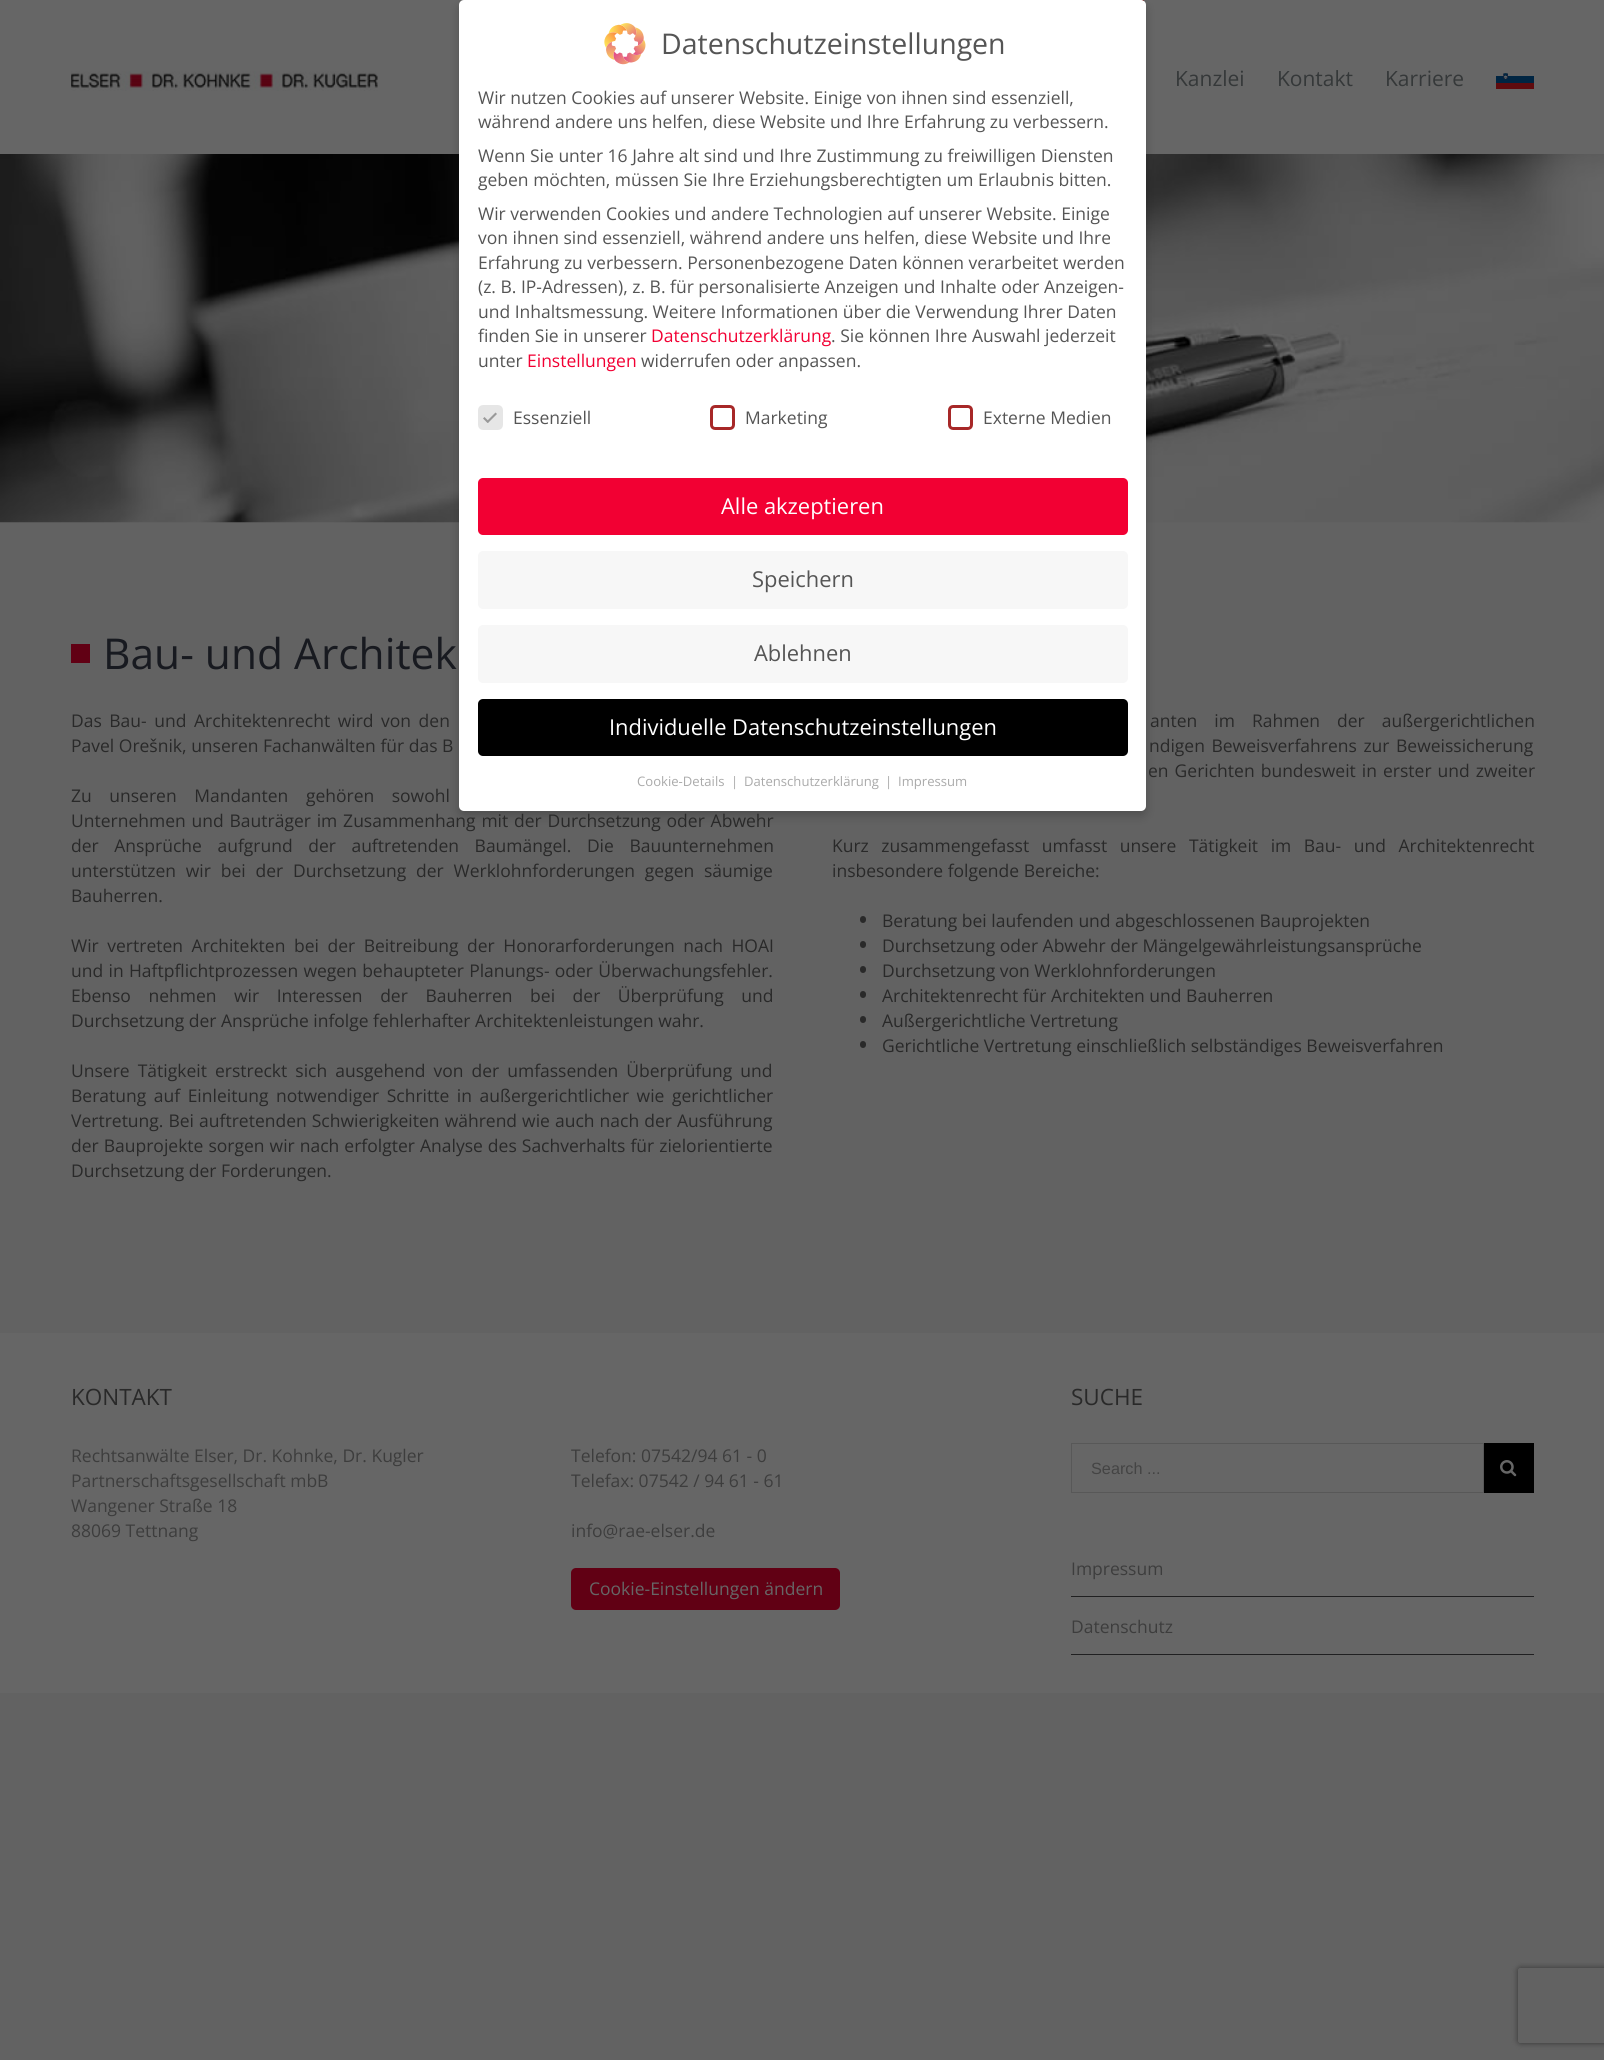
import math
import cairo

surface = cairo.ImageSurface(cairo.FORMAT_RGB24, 1604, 2060)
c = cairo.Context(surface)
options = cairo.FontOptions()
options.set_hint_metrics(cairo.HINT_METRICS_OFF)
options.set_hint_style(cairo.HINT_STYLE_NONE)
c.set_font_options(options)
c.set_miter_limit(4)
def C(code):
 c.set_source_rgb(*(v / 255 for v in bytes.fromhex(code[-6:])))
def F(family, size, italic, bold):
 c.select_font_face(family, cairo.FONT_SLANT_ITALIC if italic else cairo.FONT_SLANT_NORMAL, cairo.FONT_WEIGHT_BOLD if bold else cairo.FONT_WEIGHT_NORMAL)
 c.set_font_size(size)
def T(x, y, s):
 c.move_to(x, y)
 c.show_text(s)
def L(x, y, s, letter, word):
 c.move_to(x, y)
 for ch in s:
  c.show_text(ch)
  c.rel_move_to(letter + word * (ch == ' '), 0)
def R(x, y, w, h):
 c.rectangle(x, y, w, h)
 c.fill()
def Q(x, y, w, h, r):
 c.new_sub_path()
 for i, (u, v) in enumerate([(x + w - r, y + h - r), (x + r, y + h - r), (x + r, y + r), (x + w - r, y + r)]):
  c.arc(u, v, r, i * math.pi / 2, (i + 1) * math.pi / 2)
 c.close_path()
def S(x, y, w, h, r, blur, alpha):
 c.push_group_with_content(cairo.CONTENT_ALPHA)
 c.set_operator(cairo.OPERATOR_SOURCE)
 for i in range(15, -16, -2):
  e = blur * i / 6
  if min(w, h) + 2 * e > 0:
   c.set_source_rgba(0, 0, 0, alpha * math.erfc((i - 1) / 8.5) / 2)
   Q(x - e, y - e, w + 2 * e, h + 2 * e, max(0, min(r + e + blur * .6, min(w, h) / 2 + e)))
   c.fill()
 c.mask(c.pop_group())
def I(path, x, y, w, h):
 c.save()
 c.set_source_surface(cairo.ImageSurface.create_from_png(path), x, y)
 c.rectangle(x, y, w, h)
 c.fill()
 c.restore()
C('626262')
c.paint()
C('666666')
R(0,0,1604,154)
C('590000')
R(1141,0,3,1)
I('4.png',0,154,1604,369)
C('000000')
S(459,5,687,811,5,5,.2)
C('ffffff')
Q(459,0,687,811,5)
c.fill()
I('1.png',604,23,42,42)
F('Open Sans',28.5,0,0)
C('555555')
T(661,54,'Datenschutzeinstellungen')
F('Open Sans',17.5,0,0)
T(478,104,'Wir nutzen Cookies auf unserer Website. Einige von ihnen sind essenziell,')
T(478,128,'während andere uns helfen, diese Website und Ihre Erfahrung zu verbessern.')
T(478,162,'Wenn Sie unter 16 Jahre alt sind und Ihre Zustimmung zu freiwilligen Diensten')
T(478,186,'geben möchten, müssen Sie Ihre Erziehungsberechtigten um Erlaubnis bitten.')
T(478,220,'Wir verwenden Cookies und andere Technologien auf unserer Website. Einige')
T(478,244,'von ihnen sind essenziell, während andere uns helfen, diese Website und Ihre')
T(478,269,'Erfahrung zu verbessern. Personenbezogene Daten können verarbeitet werden')
T(478,293,'(z. B. IP-Adressen), z. B. für personalisierte Anzeigen und Inhalte oder Anzeigen-')
T(478,318,'und Inhaltsmessung. Weitere Informationen über die Verwendung Ihrer Daten')
T(478,342,'finden Sie in unserer')
C('f20033')
T(651,342,'Datenschutzerklärung')
C('555555')
T(831,342,'. Sie können Ihre Auswahl jederzeit')
T(478,367,'unter')
C('f20033')
T(527,367,'Einstellungen')
C('555555')
T(641,367,'widerrufen oder anpassen.')
C('e6e6e6')
Q(479.5,406.5,22,22,3.5)
c.fill_preserve()
c.set_line_width(3)
c.stroke()
C('999999')
c.new_path()
c.move_to(495.5,412.5)
c.line_to(497,414)
c.line_to(488,423)
c.line_to(486.5,421.5)
c.close_path()
c.fill()
c.new_path()
c.move_to(484.5,417)
c.line_to(489,421.5)
c.line_to(487.5,423)
c.line_to(483,418.5)
c.close_path()
c.fill()
C('555555')
T(513,424,'Essenziell')
Q(711.5,406.5,22,22,3.5)
C('a72828')
c.stroke()
C('555555')
T(745,424,'Marketing')
Q(949.5,406.5,22,22,3.5)
C('a72828')
c.stroke()
C('555555')
T(983,424,'Externe Medien')
C('f20033')
Q(478,478,650,57,5)
c.fill()
F('Open Sans',21.9,0,0)
C('ffffff')
T(721,514,'Alle akzeptieren')
C('f7f7f7')
Q(478,551,650,58,5)
c.fill()
C('555555')
T(752,587,'Speichern')
C('f7f7f7')
Q(478,625,650,58,5)
c.fill()
C('555555')
T(754,661,'Ablehnen')
C('000000')
Q(478,699,650,57,5)
c.fill()
C('ffffff')
T(609,735,'Individuelle Datenschutzeinstellungen')
F('Open Sans',13.1,0,0)
C('aaaaaa')
T(637,786,'Cookie-Details')
T(731,786,'|')
T(744,786,'Datenschutzerklärung')
T(885,786,'|')
T(898,786,'Impressum')
I('2.png',71,71,307,20)
F('Open Sans',21,0,0)
C('353839')
T(1175,86,'Kanzlei')
T(1277,86,'Kontakt')
T(1385,86,'Karriere')
I('3.png',1496,73,38,16)
C('610014')
R(71,644,19,19)
F('Open Sans',42.5,0,0)
C('181a20')
T(103,669,'Bau- und Architek')
F('Open Sans',17.5,0,0)
C('292929')
L(71,727,'Das Bau- und Architektenrecht wird von den',0,3)
T(71,752,'Pavel Orešnik, unseren Fachanwälten für das B')
L(71,802,'Zu unseren Mandanten gehören sowohl',0,13)
L(71,827,'Unternehmen und Bauträger im Zusammenhang mit der Durchsetzung oder Abwehr',0,1.25)
L(71,852,'der Ansprüche aufgrund der auftretenden Baumängel. Die Bauunternehmen',0,11)
L(71,877,'unterstützen wir bei der Durchsetzung der Werklohnforderungen gegen säumige',0,5.25)
T(71,902,'Bauherren.')
L(71,952,'Wir vertreten Architekten bei der Beitreibung der Honorarforderungen nach HOAI',0,4)
L(71,977,'und in Haftpflichtprozessen wegen behaupteter Planungs- oder Überwachungsfehler.',0,.75)
L(71,1002,'Ebenso nehmen wir Interessen der Bauherren bei der Überprüfung und',0,13)
T(71,1027,'Durchsetzung der Ansprüche infolge fehlerhafter Architektenleistungen wahr.')
L(71,1077,'Unsere Tätigkeit erstreckt sich ausgehend von der umfassenden Überprüfung und',0,3.5)
L(71,1102,'Beratung auf Einleitung notwendiger Schritte in außergerichtlicher wie gerichtlicher',0,3)
L(71,1127,'Vertretung. Bei auftretenden Schwierigkeiten während wie auch nach der Ausführung',0,.5)
L(71,1152,'der Bauprojekte sorgen wir nach erfolgter Analyse des Sachverhalts für zielorientierte',0,.5)
T(71,1177,'Durchsetzung der Forderungen.')
L(1150,727,'anten im Rahmen der außergerichtlichen',0,12.5)
L(1149,752,'ndigen Beweisverfahrens zur Beweissicherung',0,2)
L(1148,777,'en Gerichten bundesweit in erster und zweiter',0,1.5)
L(832,852,'Kurz zusammengefasst umfasst unsere Tätigkeit im Bau- und Architektenrecht',0,8)
T(832,877,'insbesondere folgende Bereiche:')
Q(860,916,6,7,3)
c.fill()
T(882,927,'Beratung bei laufenden und abgeschlossenen Bauprojekten')
Q(860,941,6,7,3)
c.fill()
T(882,952,'Durchsetzung oder Abwehr der Mängelgewährleistungsansprüche')
Q(860,966,6,7,3)
c.fill()
T(882,977,'Durchsetzung von Werklohnforderungen')
Q(860,991,6,7,3)
c.fill()
T(882,1002,'Architektenrecht für Architekten und Bauherren')
Q(860,1016,6,7,3)
c.fill()
T(882,1027,'Außergerichtliche Vertretung')
Q(860,1041,6,7,3)
c.fill()
T(882,1052,'Gerichtliche Vertretung einschließlich selbständiges Beweisverfahren')
C('666666')
R(0,1333,1604,360)
F('Open Sans',22.5,0,0)
C('292929')
T(71,1405,'KONTAKT')
F('Open Sans',17.5,0,0)
C('3d3d3d')
T(71,1462,'Rechtsanwälte Elser, Dr. Kohnke, Dr. Kugler')
T(71,1487,'Partnerschaftsgesellschaft mbB')
T(71,1512,'Wangener Straße 18')
T(71,1537,'88069 Tettnang')
T(571,1462,'Telefon: 07542/94 61 - 0')
T(571,1487,'Telefax: 07542 / 94 61 - 61')
T(571,1537,'info@rae-elser.de')
C('610014')
Q(571,1568,269,42,5)
c.fill()
C('666666')
T(589,1595,'Cookie-Einstellungen ändern')
F('Open Sans',22.5,0,0)
C('292929')
T(1071,1405,'SUCHE')
c.rectangle(1071.5,1443.5,412,49)
C('585858')
c.set_line_width(1)
c.stroke()
F('Liberation Sans',16.25,0,0)
C('444444')
T(1091,1474,'Search ...')
C('000000')
R(1484,1443,50,50)
I('5.png',1500,1460,17,17)
C('202021')
R(1071,1596,463,1)
F('Open Sans',17.5,0,0)
C('3d3d3d')
T(1071,1575,'Impressum')
C('202021')
R(1071,1654,463,1)
C('3d3d3d')
T(1071,1633,'Datenschutz')
c.save()
c.set_fill_rule(cairo.FILL_RULE_EVEN_ODD)
c.new_path()
c.move_to(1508,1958)
c.line_to(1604,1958)
c.line_to(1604,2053)
c.line_to(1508,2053)
c.close_path()
c.move_to(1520.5,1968)
c.line_to(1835.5,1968)
c.curve_to(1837,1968,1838,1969,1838,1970.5)
c.line_to(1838,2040.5)
c.curve_to(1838,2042,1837,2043,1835.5,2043)
c.line_to(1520.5,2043)
c.curve_to(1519,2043,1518,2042,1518,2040.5)
c.line_to(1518,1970.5)
c.curve_to(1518,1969,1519,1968,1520.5,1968)
c.close_path()
c.clip()
C('333333')
S(1518,1968,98,75,2.5,3,1)
c.restore()
surface.write_to_png('o.png')
